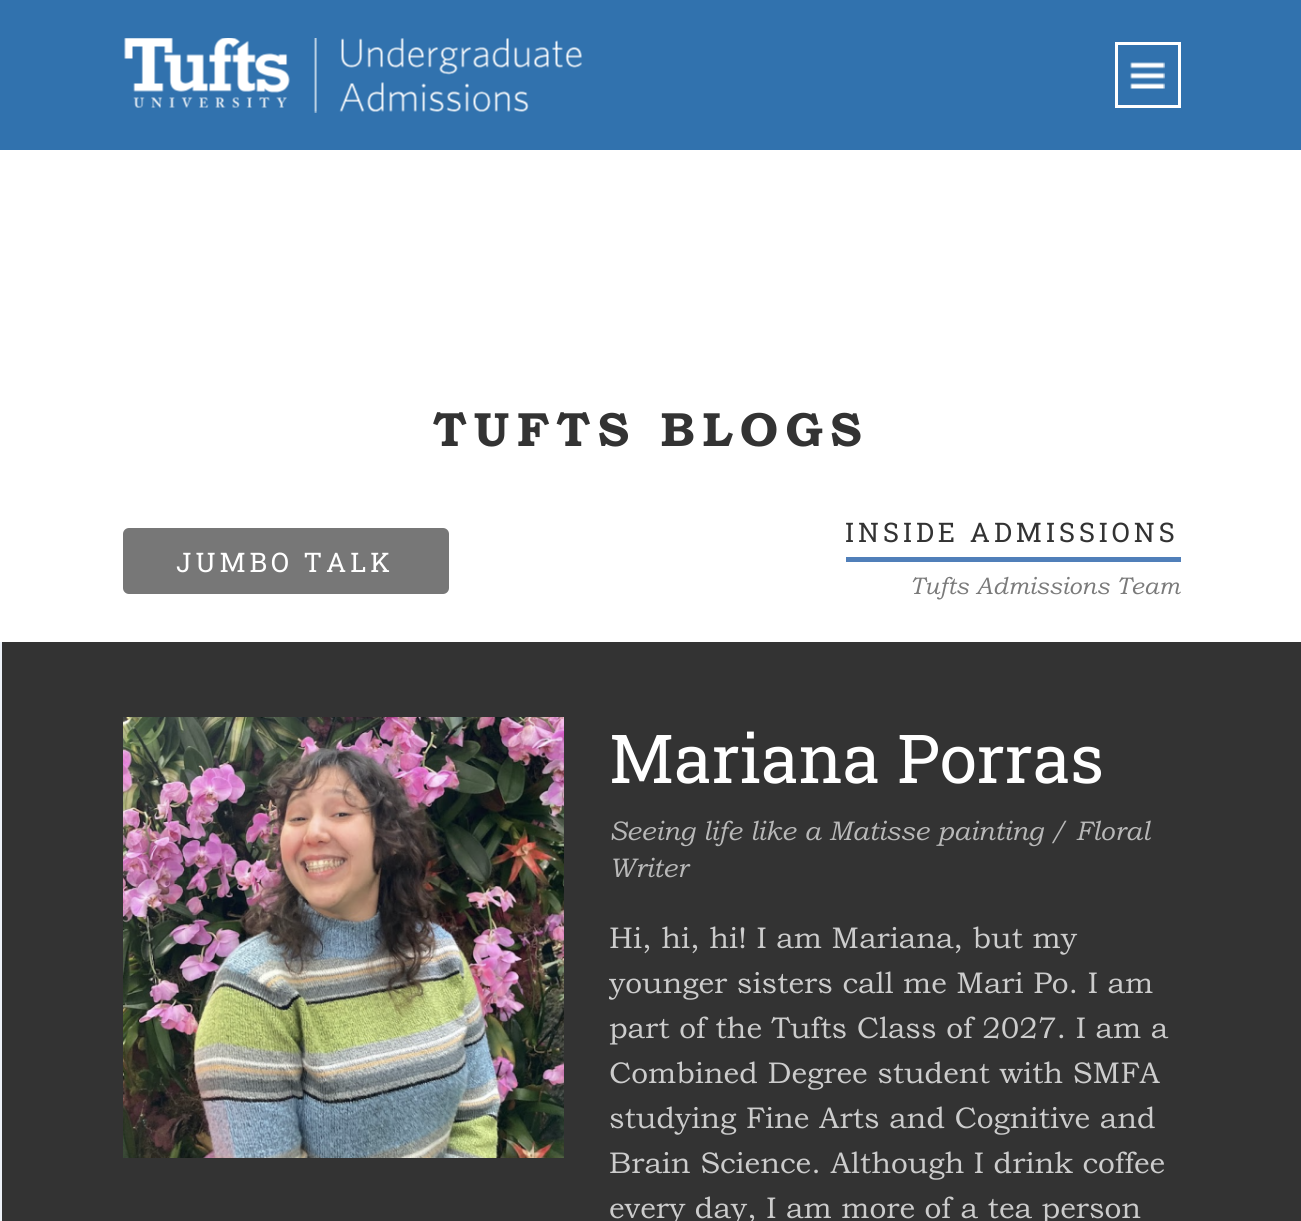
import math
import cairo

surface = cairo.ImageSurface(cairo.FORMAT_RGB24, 1301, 1221)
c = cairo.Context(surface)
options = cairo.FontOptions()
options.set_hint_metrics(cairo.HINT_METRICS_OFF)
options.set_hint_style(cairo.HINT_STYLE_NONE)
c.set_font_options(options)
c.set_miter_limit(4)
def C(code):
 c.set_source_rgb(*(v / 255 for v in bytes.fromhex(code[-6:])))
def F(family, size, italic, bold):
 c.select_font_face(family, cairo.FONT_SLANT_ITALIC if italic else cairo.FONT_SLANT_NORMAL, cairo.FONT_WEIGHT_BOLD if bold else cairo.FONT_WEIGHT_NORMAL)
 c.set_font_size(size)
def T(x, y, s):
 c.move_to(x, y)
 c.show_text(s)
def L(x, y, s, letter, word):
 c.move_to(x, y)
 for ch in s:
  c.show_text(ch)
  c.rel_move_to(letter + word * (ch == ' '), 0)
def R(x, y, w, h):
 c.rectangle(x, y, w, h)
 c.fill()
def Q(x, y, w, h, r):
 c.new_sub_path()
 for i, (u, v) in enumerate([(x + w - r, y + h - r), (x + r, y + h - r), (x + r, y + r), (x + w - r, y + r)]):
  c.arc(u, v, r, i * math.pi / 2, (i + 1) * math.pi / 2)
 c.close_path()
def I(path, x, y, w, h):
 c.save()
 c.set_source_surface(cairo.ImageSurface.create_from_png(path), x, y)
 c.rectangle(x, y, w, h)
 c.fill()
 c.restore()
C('3172ae')
c.paint()
I('1.png',124,38,458,75)
c.rectangle(1116.5,43.5,63,63)
C('ffffff')
c.set_line_width(3)
c.stroke()
I('2.png',1130,62,35,27)
R(0,150,1301,492)
F('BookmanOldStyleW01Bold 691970',48,0,1)
C('333333')
L(433,446,'TUFTS BLOGS',7.25,0)
C('777777')
Q(123,528,326,66,6)
c.fill()
F('Roboto Slab',27,0,0)
C('ffffff')
L(176,572,'JUMBO TALK',4,0)
C('507fb9')
R(846,557,335,5)
C('333333')
L(845,542,'INSIDE ADMISSIONS',4,0)
F('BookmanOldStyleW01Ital',24,0,0)
C('7a7a7a')
T(910,594,'Tufts Admissions Team')
C('333333')
R(2,642,1299,579)
C('edf2f8')
R(0,642,2,579)
I('3.png',123,717,441,441)
F('Roboto Slab',67.5,0,0)
C('ffffff')
T(609,783,'Mariana Porras')
F('BookmanOldStyleW01Ital',27,0,0)
C('b8b8b8')
T(609,840,'Seeing life like a Matisse painting / Floral')
T(609,877,'Writer')
F('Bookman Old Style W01',30,0,0)
C('cccccc')
T(609,948,'Hi, hi, hi! I am Mariana, but my')
c.save()
c.rectangle(609,717,572,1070)
c.clip()
T(609,993,'younger sisters call me Mari Po. I am')
c.restore()
T(609,1038,'part of the Tufts Class of 2027. I am a')
T(609,1083,'Combined Degree student with SMFA')
T(609,1128,'studying Fine Arts and Cognitive and')
T(609,1173,'Brain Science. Although I drink coffee')
T(609,1218,'every day, I am more of a tea person')
surface.write_to_png('o.png')
